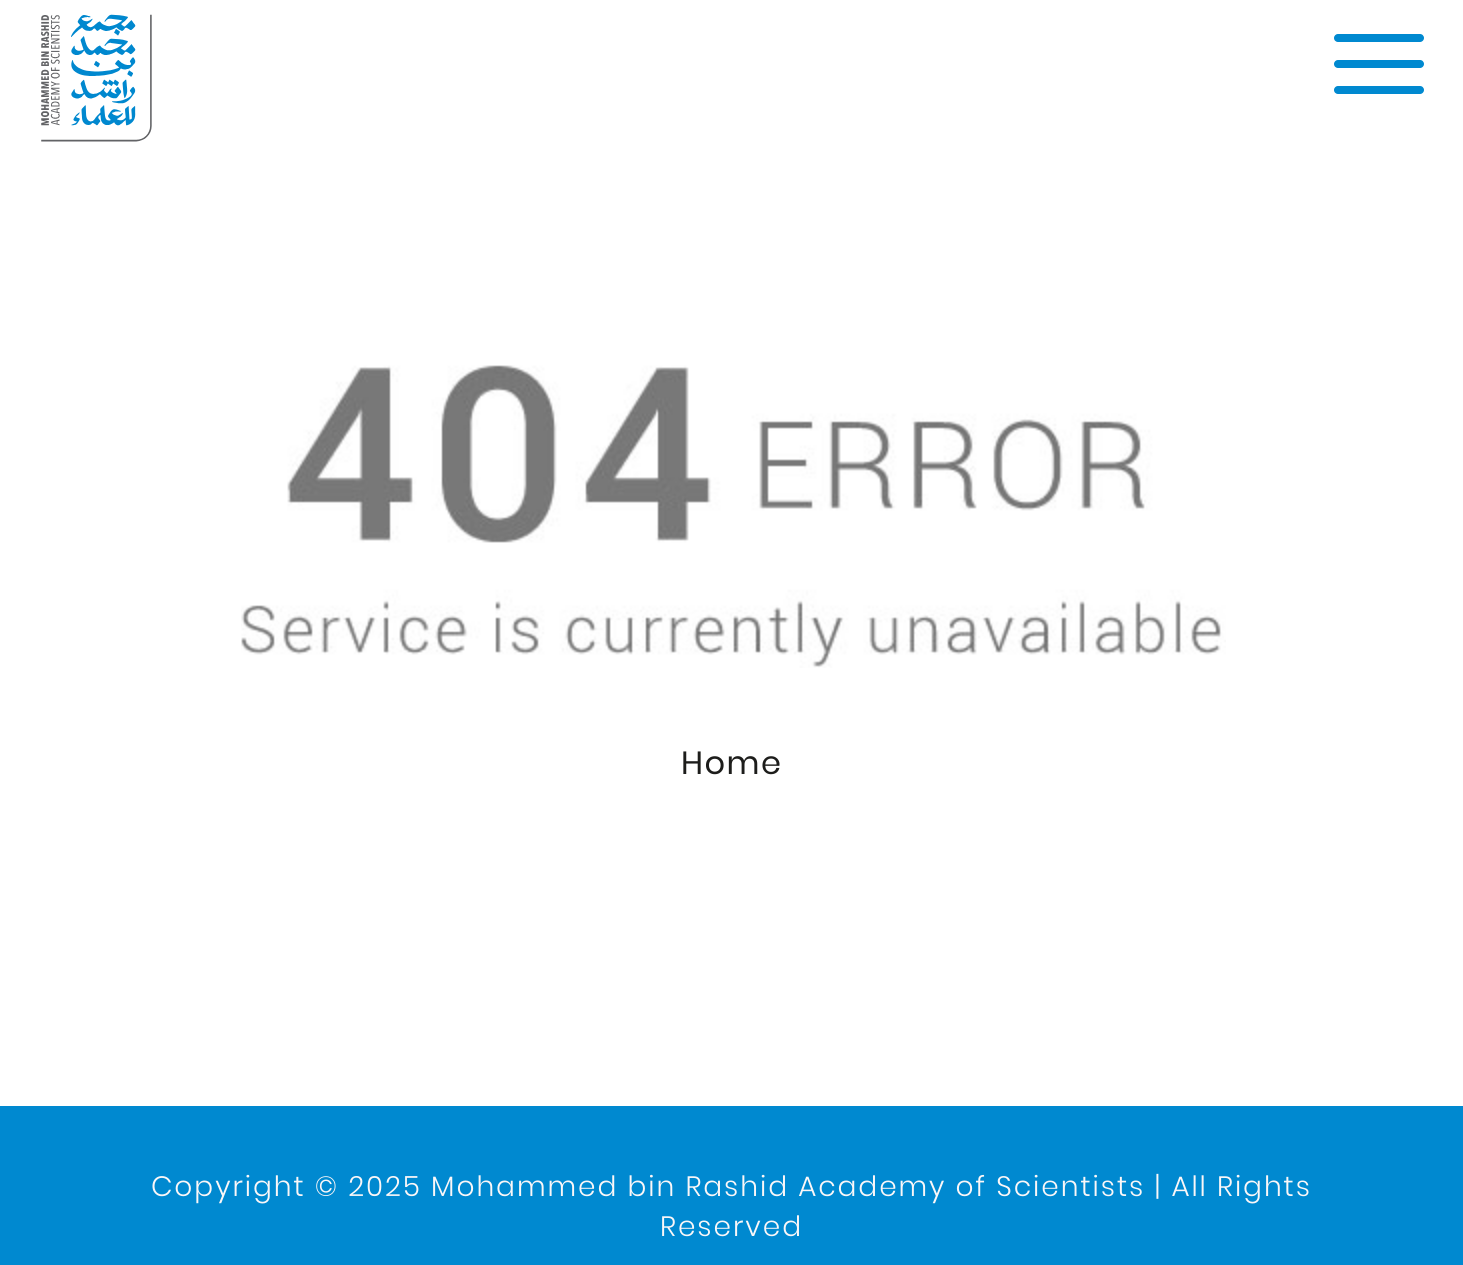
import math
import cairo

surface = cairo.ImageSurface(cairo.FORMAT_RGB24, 1463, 1265)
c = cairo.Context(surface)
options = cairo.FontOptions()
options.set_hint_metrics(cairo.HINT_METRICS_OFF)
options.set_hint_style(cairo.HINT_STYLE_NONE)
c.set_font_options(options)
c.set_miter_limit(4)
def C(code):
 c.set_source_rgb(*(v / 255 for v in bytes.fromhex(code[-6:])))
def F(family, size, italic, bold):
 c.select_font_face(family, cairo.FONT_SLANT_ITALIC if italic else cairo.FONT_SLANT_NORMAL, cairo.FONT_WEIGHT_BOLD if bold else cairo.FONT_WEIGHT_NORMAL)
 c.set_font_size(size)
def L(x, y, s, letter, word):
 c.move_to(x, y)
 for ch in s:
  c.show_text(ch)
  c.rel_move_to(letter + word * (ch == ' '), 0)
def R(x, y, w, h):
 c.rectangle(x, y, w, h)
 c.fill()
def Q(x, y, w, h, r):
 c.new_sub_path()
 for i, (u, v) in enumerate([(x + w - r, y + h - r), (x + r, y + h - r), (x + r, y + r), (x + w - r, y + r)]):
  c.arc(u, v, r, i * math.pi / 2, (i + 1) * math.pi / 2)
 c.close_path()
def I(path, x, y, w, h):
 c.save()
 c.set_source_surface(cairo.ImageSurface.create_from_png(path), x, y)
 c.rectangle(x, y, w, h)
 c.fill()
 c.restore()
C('ffffff')
c.paint()
I('1.png',41,14,111,128)
C('0089d0')
Q(1334,34,90,8,4)
c.fill()
Q(1334,60,90,8,4)
c.fill()
Q(1334,86,90,8,4)
c.fill()
I('2.png',241,365,985,303)
F('Poppins',32,0,0)
C('1d1d1b')
L(681,774,'Home',1.5,0)
C('0089d0')
R(0,1106,1463,159)
F('Poppins Light',28,0,0)
C('fbf7f8')
L(151,1196,'Copyright © 2025 Mohammed bin Rashid Academy of Scientists | All Rights',1.95,0)
L(660,1236,'Reserved',1.95,0)
surface.write_to_png('o.png')
